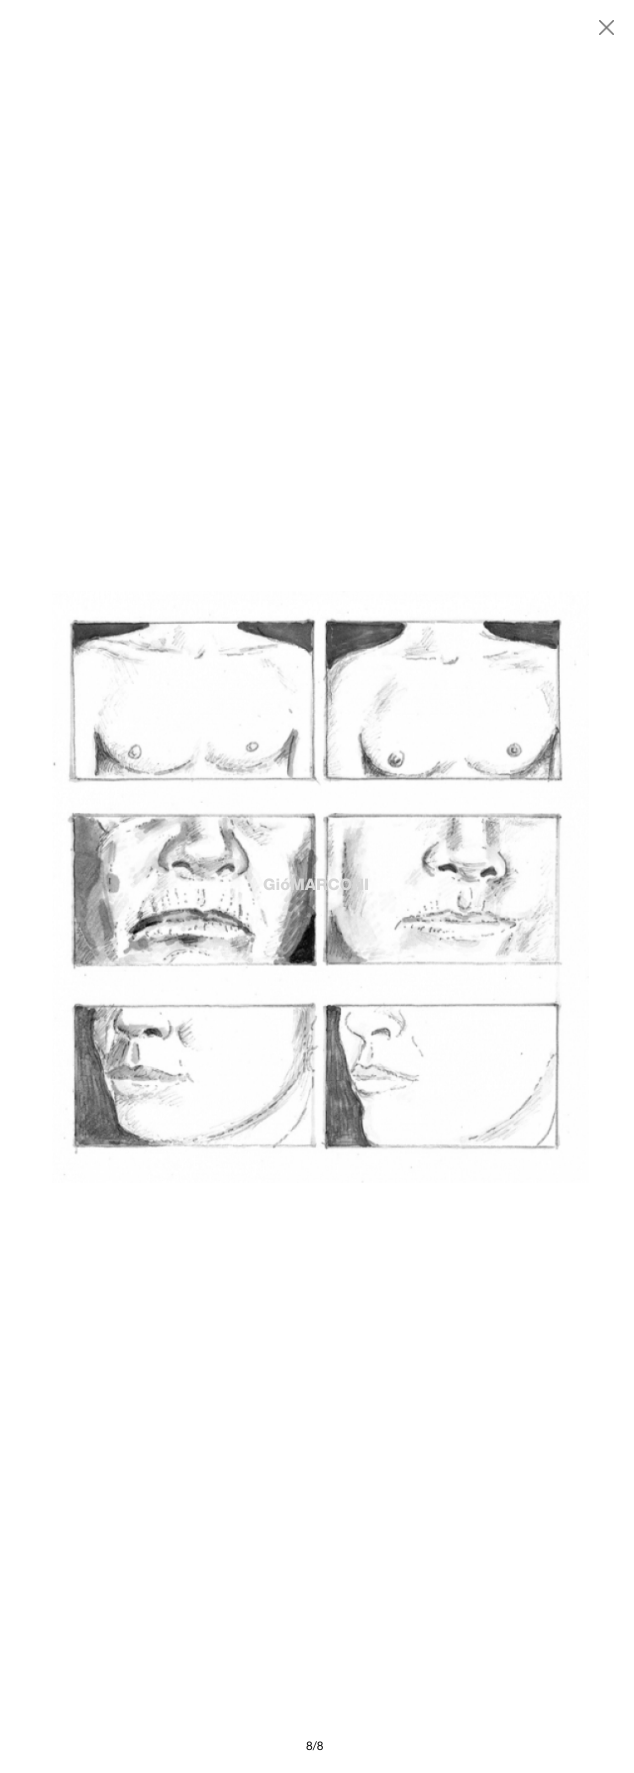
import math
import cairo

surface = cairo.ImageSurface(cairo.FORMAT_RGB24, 634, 1773)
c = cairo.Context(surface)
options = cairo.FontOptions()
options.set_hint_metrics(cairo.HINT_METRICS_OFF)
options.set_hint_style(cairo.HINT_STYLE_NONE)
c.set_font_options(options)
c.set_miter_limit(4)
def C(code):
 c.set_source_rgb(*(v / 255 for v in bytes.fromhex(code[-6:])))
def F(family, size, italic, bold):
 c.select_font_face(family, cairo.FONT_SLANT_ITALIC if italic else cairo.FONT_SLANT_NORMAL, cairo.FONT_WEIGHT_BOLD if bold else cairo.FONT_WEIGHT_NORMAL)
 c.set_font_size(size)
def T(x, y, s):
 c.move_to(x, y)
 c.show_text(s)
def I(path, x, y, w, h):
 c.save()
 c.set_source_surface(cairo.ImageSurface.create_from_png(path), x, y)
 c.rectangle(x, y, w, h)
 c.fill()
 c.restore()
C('ffffff')
c.paint()
I('2.png',52,591,537,592)
F('Helvetica Neue Black',16,0,0)
C('d7d7d7')
T(263,890,'GióMARCONI')
I('1.png',599,20,15,15)
F('Helvetica Neue',12,0,0)
C('111111')
T(306,1750,'8/8')
surface.write_to_png('o.png')
